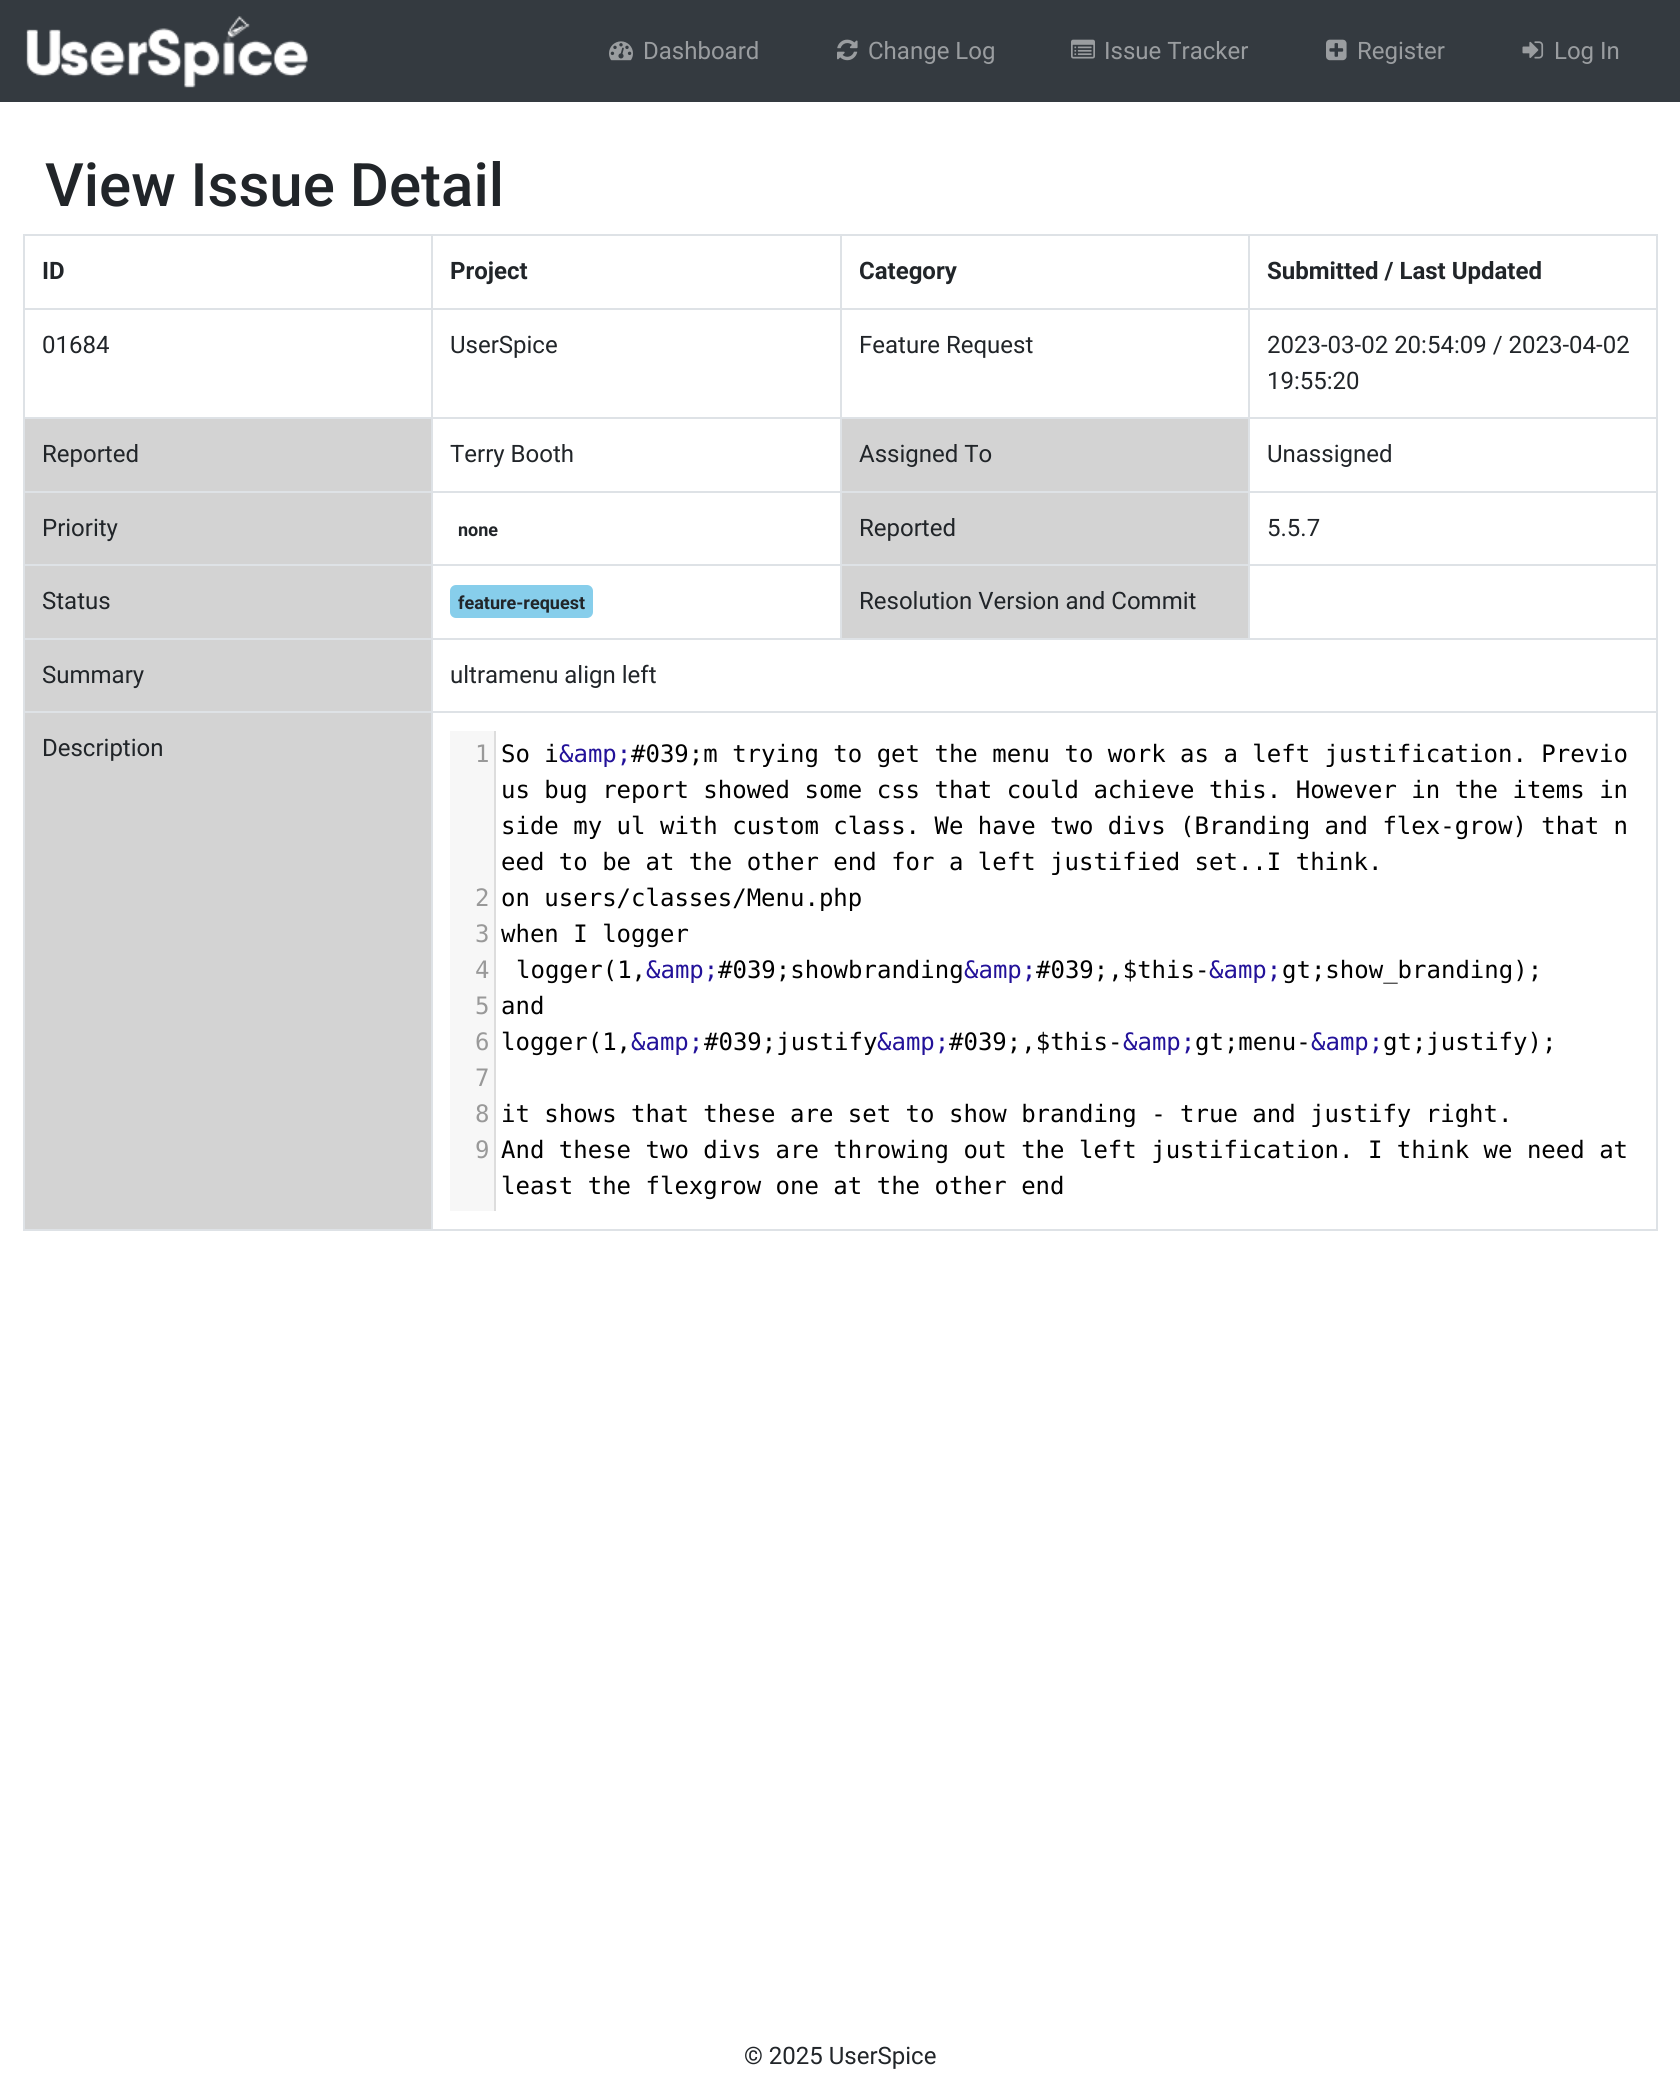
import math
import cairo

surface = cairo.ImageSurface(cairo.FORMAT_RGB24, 1680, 2098)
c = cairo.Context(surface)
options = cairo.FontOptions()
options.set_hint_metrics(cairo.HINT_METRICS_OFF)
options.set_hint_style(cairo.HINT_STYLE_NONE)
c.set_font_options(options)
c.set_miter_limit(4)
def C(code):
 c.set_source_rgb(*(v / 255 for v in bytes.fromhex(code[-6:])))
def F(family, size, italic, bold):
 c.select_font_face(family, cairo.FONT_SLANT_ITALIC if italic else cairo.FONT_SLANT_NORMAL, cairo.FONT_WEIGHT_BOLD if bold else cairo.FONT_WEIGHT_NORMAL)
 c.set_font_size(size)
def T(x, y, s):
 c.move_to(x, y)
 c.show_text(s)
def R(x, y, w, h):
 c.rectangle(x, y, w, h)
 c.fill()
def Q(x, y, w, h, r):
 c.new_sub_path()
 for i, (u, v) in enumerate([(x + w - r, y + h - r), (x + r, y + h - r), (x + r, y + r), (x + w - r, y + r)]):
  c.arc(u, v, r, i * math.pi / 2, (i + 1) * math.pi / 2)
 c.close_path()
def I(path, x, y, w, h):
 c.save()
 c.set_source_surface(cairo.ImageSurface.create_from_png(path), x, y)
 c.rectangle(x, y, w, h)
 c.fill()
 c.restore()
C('ffffff')
c.paint()
C('343a40')
R(0,0,1680,102)
I('1.png',26,16,282,72)
I('2.png',609,41,24,20)
F('Roboto',24,0,0)
C('9a9da0')
T(643,59,'Dashboard')
I('3.png',837,39,21,22)
T(868,59,'Change Log')
I('4.png',1071,39,24,20)
T(1104,59,'Issue Tracker')
I('5.png',1326,39,21,22)
T(1357,59,'Register')
I('6.png',1522,41,22,18)
T(1554,59,'Log In')
F('Roboto Medium',60,0,0)
C('212529')
T(45,206,'View Issue Detail')
C('dee2e6')
R(23,234,1635,2)
R(1656,234,2,996)
R(23,1229,1635,2)
R(23,234,2,996)
F('Roboto',24,0,1)
C('212529')
T(42,279,'ID')
C('dee2e6')
R(1248,308,410,2)
R(1248,417,410,2)
R(1248,491,410,2)
R(1248,564,410,2)
R(431,638,1227,2)
R(1248,564,2,75)
R(840,564,410,2)
R(1248,491,2,75)
R(840,491,410,2)
R(1248,417,2,75)
R(840,417,410,2)
R(1248,308,2,111)
R(840,308,410,2)
R(840,564,2,75)
R(431,564,411,2)
R(840,491,2,75)
R(431,491,411,2)
R(840,417,2,75)
R(431,417,411,2)
R(840,308,2,111)
R(431,308,411,2)
R(431,711,1227,2)
R(431,711,2,519)
R(23,711,409,2)
R(431,638,2,75)
R(23,638,409,2)
R(431,564,2,75)
R(23,564,409,2)
R(431,491,2,75)
R(23,491,409,2)
R(431,417,2,75)
R(23,417,409,2)
R(431,308,2,111)
R(23,308,409,2)
R(431,234,2,75)
C('212529')
T(450,279,'Project')
C('dee2e6')
R(840,234,2,75)
C('212529')
T(859,279,'Category')
C('dee2e6')
R(1248,234,2,75)
C('212529')
T(1267,279,'Submitted / Last Updated')
F('Roboto',24,0,0)
T(42,353,'01684')
T(450,353,'UserSpice')
T(859,353,'Feature Request')
T(1267,353,'2023-03-02 20:54:09 / 2023-04-02')
T(1267,389,'19:55:20')
C('d3d3d3')
R(25,419,406,72)
C('212529')
T(42,462,'Reported')
T(450,462,'Terry Booth')
C('d3d3d3')
R(842,419,406,72)
C('212529')
T(859,462,'Assigned To')
T(1267,462,'Unassigned')
C('d3d3d3')
R(25,493,406,71)
C('212529')
T(42,536,'Priority')
F('Roboto',18,0,1)
T(458,536,'none')
C('d3d3d3')
R(842,493,406,71)
F('Roboto',24,0,0)
C('212529')
T(859,536,'Reported')
T(1267,536,'5.5.7')
C('d3d3d3')
R(25,566,406,72)
C('212529')
T(42,609,'Status')
C('87ceeb')
Q(450,585,143,33,6)
c.fill()
F('Roboto',18,0,1)
C('212529')
T(458,609,'feature-request')
C('d3d3d3')
R(842,566,406,72)
F('Roboto',24,0,0)
C('212529')
T(859,609,'Resolution Version and Commit')
C('d3d3d3')
R(25,640,406,71)
C('212529')
T(42,683,'Summary')
T(450,683,'ultramenu align left')
C('d3d3d3')
R(25,713,406,516)
C('212529')
T(42,756,'Description')
C('f7f7f7')
R(450,731,44,480)
C('dddddd')
R(494,731,2,480)
F('DejaVu Sans Mono',24,0,0)
C('999999')
T(475,762,'1')
C('000000')
T(501,762,'So i')
C('221199')
T(559,762,'&amp;')
C('000000')
T(631,762,'#039;m trying to get the menu to work as a left justification. Previo')
T(501,798,'us bug report showed some css that could achieve this. However in the items in')
T(501,834,'side my ul with custom class. We have two divs (Branding and flex-grow) that n')
T(501,870,'eed to be at the other end for a left justified set..I think.')
C('999999')
T(475,906,'2')
C('000000')
T(501,906,'on users/classes/Menu.php')
C('999999')
T(475,942,'3')
C('000000')
T(501,942,'when I logger')
C('999999')
T(475,978,'4')
C('000000')
T(516,978,'logger(1,')
C('221199')
T(646,978,'&amp;')
C('000000')
T(718,978,'#039;showbranding')
C('221199')
T(964,978,'&amp;')
C('000000')
T(1036,978,'#039;,$this-')
C('221199')
T(1209,978,'&amp;')
C('000000')
T(1282,978,'gt;show_branding);')
C('999999')
T(475,1014,'5')
C('000000')
T(501,1014,'and')
C('999999')
T(475,1050,'6')
C('000000')
T(501,1050,'logger(1,')
C('221199')
T(631,1050,'&amp;')
C('000000')
T(704,1050,'#039;justify')
C('221199')
T(877,1050,'&amp;')
C('000000')
T(949,1050,'#039;,$this-')
C('221199')
T(1123,1050,'&amp;')
C('000000')
T(1195,1050,'gt;menu-')
C('221199')
T(1311,1050,'&amp;')
C('000000')
T(1383,1050,'gt;justify);')
C('999999')
T(475,1086,'7')
T(475,1122,'8')
C('000000')
T(501,1122,'it shows that these are set to show branding - true and justify right.')
C('999999')
T(475,1158,'9')
C('000000')
T(501,1158,'And these two divs are throwing out the left justification. I think we need at')
T(501,1194,'least the flexgrow one at the other end')
F('Roboto',24,0,0)
C('212529')
T(744,2064,'© 2025 UserSpice')
surface.write_to_png('o.png')
